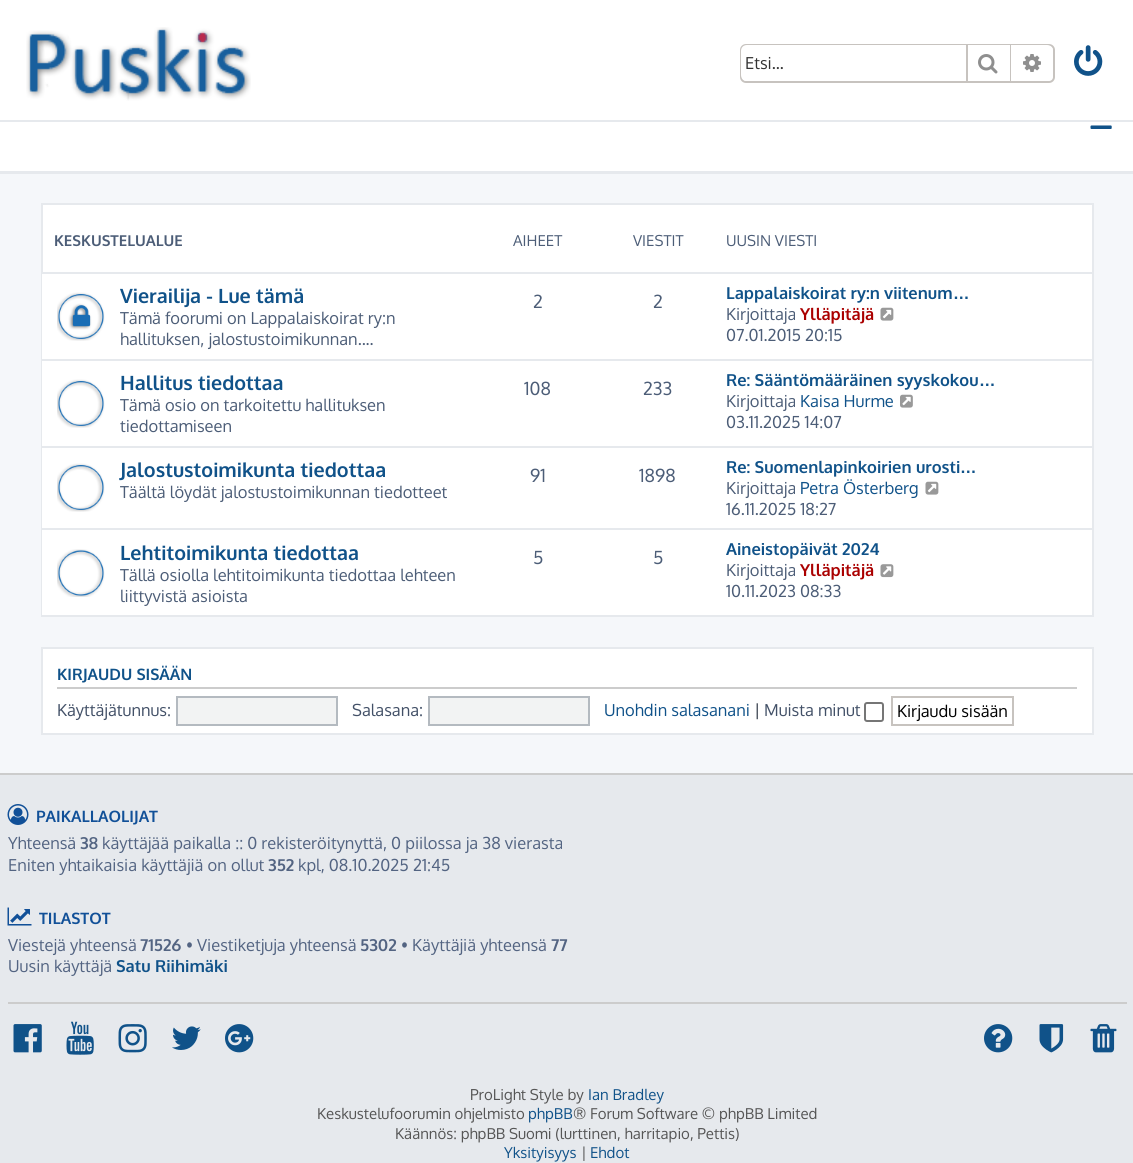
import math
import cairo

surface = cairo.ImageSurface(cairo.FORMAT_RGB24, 1133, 1163)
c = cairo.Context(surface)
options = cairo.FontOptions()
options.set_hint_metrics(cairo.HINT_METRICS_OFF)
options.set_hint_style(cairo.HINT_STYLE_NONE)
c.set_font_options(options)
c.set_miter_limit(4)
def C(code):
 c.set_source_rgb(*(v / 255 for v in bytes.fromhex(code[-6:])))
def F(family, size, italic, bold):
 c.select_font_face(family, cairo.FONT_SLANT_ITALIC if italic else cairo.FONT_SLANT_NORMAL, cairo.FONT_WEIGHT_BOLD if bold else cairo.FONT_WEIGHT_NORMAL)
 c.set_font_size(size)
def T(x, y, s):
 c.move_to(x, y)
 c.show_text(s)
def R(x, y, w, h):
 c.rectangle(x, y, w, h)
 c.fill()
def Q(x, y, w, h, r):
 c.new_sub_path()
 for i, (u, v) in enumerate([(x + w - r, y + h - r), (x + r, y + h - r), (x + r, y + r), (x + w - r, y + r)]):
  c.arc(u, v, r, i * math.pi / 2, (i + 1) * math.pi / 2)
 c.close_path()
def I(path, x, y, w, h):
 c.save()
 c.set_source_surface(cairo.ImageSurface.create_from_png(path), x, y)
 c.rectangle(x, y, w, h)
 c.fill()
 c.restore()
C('f5f7fa')
c.paint()
C('ffffff')
R(0,0,1133,120)
C('e6e9ed')
R(0,120,1133,2)
I('1.png',26,27,225,74)
Q(741,45,313,37,5)
C('c7c3bf')
c.stroke()
C('ffffff')
c.new_path()
c.move_to(747,45)
c.line_to(966,45)
c.line_to(966,81)
c.line_to(747,81)
c.curve_to(743.5,81,741,78.5,741,75)
c.line_to(741,51)
c.curve_to(741,47.5,743.5,45,747,45)
c.close_path()
c.fill()
F('Oxygen',16.5,0,0)
C('333333')
T(745,69,'Etsi…')
C('ffffff')
R(968,45,42,1)
C('c7c3bf')
R(1010,45,1,36)
R(966,45,2,36)
I('2.png',978,54,20,20)
C('ffffff')
c.new_path()
c.move_to(1011,45)
c.line_to(1047,45)
c.curve_to(1050.5,45,1053,47.5,1053,51)
c.line_to(1053,75)
c.curve_to(1053,78.5,1050.5,81,1047,81)
c.line_to(1011,81)
c.close_path()
c.fill()
I('3.png',1023,54,18,18)
I('4.png',1074,45,29,31)
R(0,122,1133,49)
C('e6e9ed')
R(0,171,1133,3)
I('5.png',1090,125,22,4)
C('ffffff')
R(43,205,1049,67)
c.rectangle(42,204,1051,412)
C('e6e9ed')
c.stroke()
F('Oxygen',15,0,1)
C('4c5d77')
T(54,246,'KESKUSTELUALUE')
F('Oxygen',15,0,0)
T(513,246,'AIHEET')
T(633,246,'VIESTIT')
T(726,246,'UUSIN VIESTI')
C('ffffff')
R(42,274,1050,341)
C('e6e9ed')
R(42,272,1050,2)
I('6.png',57,292,48,49)
F('Oxygen',19.75,0,1)
C('105289')
T(120,303,'Vierailija - Lue tämä')
F('Oxygen',16.5,0,0)
C('4c5d77')
T(120,324,'Tämä foorumi on Lappalaiskoirat ry:n')
T(120,345,'hallituksen, jalostustoimikunnan....')
F('Oxygen',18,0,0)
T(533,308,'2')
T(653,308,'2')
F('Oxygen',16.5,0,1)
C('105289')
T(726,299,'Lappalaiskoirat ry:n viitenum')
F('Liberation Sans',16.5,0,1)
T(953,299,'…')
F('Oxygen',16.5,0,0)
C('4c5d77')
T(726,320,'Kirjoittaja')
F('Oxygen',16.5,0,1)
C('aa0000')
T(800,320,'Ylläpitäjä')
I('7.png',880,307,14,14)
F('Oxygen',16.5,0,0)
C('4c5d77')
T(726,341,'07.01.2015 20:15')
C('e6e9ed')
R(42,359,1050,2)
I('8.png',57,379,48,49)
F('Oxygen',19.75,0,1)
C('105289')
T(120,390,'Hallitus tiedottaa')
F('Oxygen',16.5,0,0)
C('4c5d77')
T(120,411,'Tämä osio on tarkoitettu hallituksen')
T(120,432,'tiedottamiseen')
F('Oxygen',18,0,0)
T(524,395,'108')
T(643,395,'233')
F('Oxygen',16.5,0,1)
C('105289')
T(726,386,'Re: Sääntömääräinen syyskokou')
F('Liberation Sans',16.5,0,1)
T(979,386,'…')
F('Oxygen',16.5,0,0)
C('4c5d77')
T(726,407,'Kirjoittaja')
C('105289')
T(800,407,'Kaisa Hurme')
I('9.png',900,394,13,14)
C('4c5d77')
T(726,428,'03.11.2025 14:07')
C('e6e9ed')
R(42,446,1050,2)
I('8.png',57,463,48,49)
F('Oxygen',19.75,0,1)
C('105289')
T(120,477,'Jalostustoimikunta tiedottaa')
F('Oxygen',16.5,0,0)
C('4c5d77')
T(120,498,'Täältä löydät jalostustoimikunnan tiedotteet')
F('Oxygen',18,0,0)
T(530,482,'91')
T(639,482,'1898')
F('Oxygen',16.5,0,1)
C('105289')
T(726,473,'Re: Suomenlapinkoirien urosti')
F('Liberation Sans',16.5,0,1)
T(960,473,'…')
F('Oxygen',16.5,0,0)
C('4c5d77')
T(726,494,'Kirjoittaja')
C('105289')
T(800,494,'Petra Österberg')
I('7.png',925,481,14,14)
C('4c5d77')
T(726,515,'16.11.2025 18:27')
C('e6e9ed')
R(42,528,1050,2)
I('10.png',57,549,48,48)
F('Oxygen',19.75,0,1)
C('105289')
T(120,560,'Lehtitoimikunta tiedottaa')
F('Oxygen',16.5,0,0)
C('4c5d77')
T(120,581,'Tällä osiolla lehtitoimikunta tiedottaa lehteen')
T(120,602,'liittyvistä asioista')
F('Oxygen',18,0,0)
T(533,564,'5')
T(653,564,'5')
F('Oxygen',16.5,0,1)
C('105289')
T(726,555,'Aineistopäivät 2024')
F('Oxygen',16.5,0,0)
C('4c5d77')
T(726,576,'Kirjoittaja')
F('Oxygen',16.5,0,1)
C('aa0000')
T(800,576,'Ylläpitäjä')
I('11.png',880,564,14,14)
F('Oxygen',16.5,0,0)
C('4c5d77')
T(726,597,'10.11.2023 08:33')
C('ffffff')
c.rectangle(42,648,1051,86)
c.fill_preserve()
C('e6e9ed')
c.stroke()
C('cccccc')
R(57,687,1020,2)
F('Oxygen',15.75,0,1)
C('105289')
T(57,680,'KIRJAUDU SISÄÄN')
F('Oxygen',16.5,0,0)
C('425067')
T(57,716,'Käyttäjätunnus:')
C('f2f3f3')
c.rectangle(177,697,160,28)
c.fill_preserve()
C('b4bac0')
c.stroke()
C('425067')
T(352,716,'Salasana:')
C('f2f3f3')
c.rectangle(429,697,160,28)
c.fill_preserve()
C('b4bac0')
c.stroke()
C('105289')
T(604,716,'Unohdin salasanani')
C('28313f')
T(754,716,'|')
C('425067')
T(764,716,'Muista minut')
Q(865,703,18,18,2)
C('767676')
c.stroke()
c.rectangle(892,697,121,28)
C('c7c3bf')
c.stroke()
C('000000')
T(897,717,'Kirjaudu sisään')
C('e6e9ed')
R(0,775,1133,388)
C('cccccc')
R(0,773,1133,2)
I('12.png',7,804,22,21)
F('Oxygen',15.75,0,1)
C('115098')
T(36,822,'PAIKALLAOLIJAT')
F('Oxygen',16.5,0,0)
C('536482')
T(8,849,'Yhteensä')
F('Oxygen',16.5,0,1)
T(80,849,'38')
F('Oxygen',16.5,0,0)
T(102,849,'käyttäjää paikalla :: 0 rekisteröitynyttä, 0 piilossa ja 38 vierasta')
T(8,871,'Eniten yhtaikaisia käyttäjiä on ollut')
F('Oxygen',16.5,0,1)
T(268,871,'352')
F('Oxygen',16.5,0,0)
T(298,871,'kpl, 08.10.2025 21:45')
I('13.png',7,907,25,19)
F('Oxygen',15.75,0,1)
C('115098')
T(39,924,'TILASTOT')
F('Oxygen',16.5,0,0)
C('536482')
T(8,951,'Viestejä yhteensä')
F('Oxygen',16.5,0,1)
T(140,951,'71526')
F('Oxygen',16.5,0,0)
T(186,951,'• Viestiketjuja yhteensä')
F('Oxygen',16.5,0,1)
T(360,951,'5302')
F('Oxygen',16.5,0,0)
T(401,951,'• Käyttäjiä yhteensä')
F('Oxygen',16.5,0,1)
T(551,951,'77')
F('Oxygen',16.5,0,0)
T(8,972,'Uusin käyttäjä')
F('Oxygen',16.5,0,1)
C('105289')
T(116,972,'Satu Riihimäki')
C('cccccc')
R(8,1002,1119,2)
I('14.png',13,1024,29,29)
I('15.png',66,1021,28,34)
I('16.png',118,1024,29,29)
I('17.png',172,1026,29,24)
I('18.png',225,1024,29,29)
I('19.png',984,1024,29,29)
I('20.png',1039,1024,25,29)
I('21.png',1090,1024,27,29)
F('Oxygen',15,0,0)
C('555555')
T(470,1100,'ProLight Style by')
C('105289')
T(588,1100,'Ian Bradley')
C('555555')
T(317,1119,'Keskustelufoorumin ohjelmisto')
C('105289')
T(528,1119,'phpBB')
C('555555')
T(573,1119,'® Forum Software © phpBB Limited')
T(395,1139,'Käännös: phpBB Suomi (lurttinen, harritapio, Pettis)')
C('105289')
T(504,1158,'Yksityisyys')
C('555555')
T(581,1158,'|')
C('105289')
T(590,1158,'Ehdot')
surface.write_to_png('o.png')
